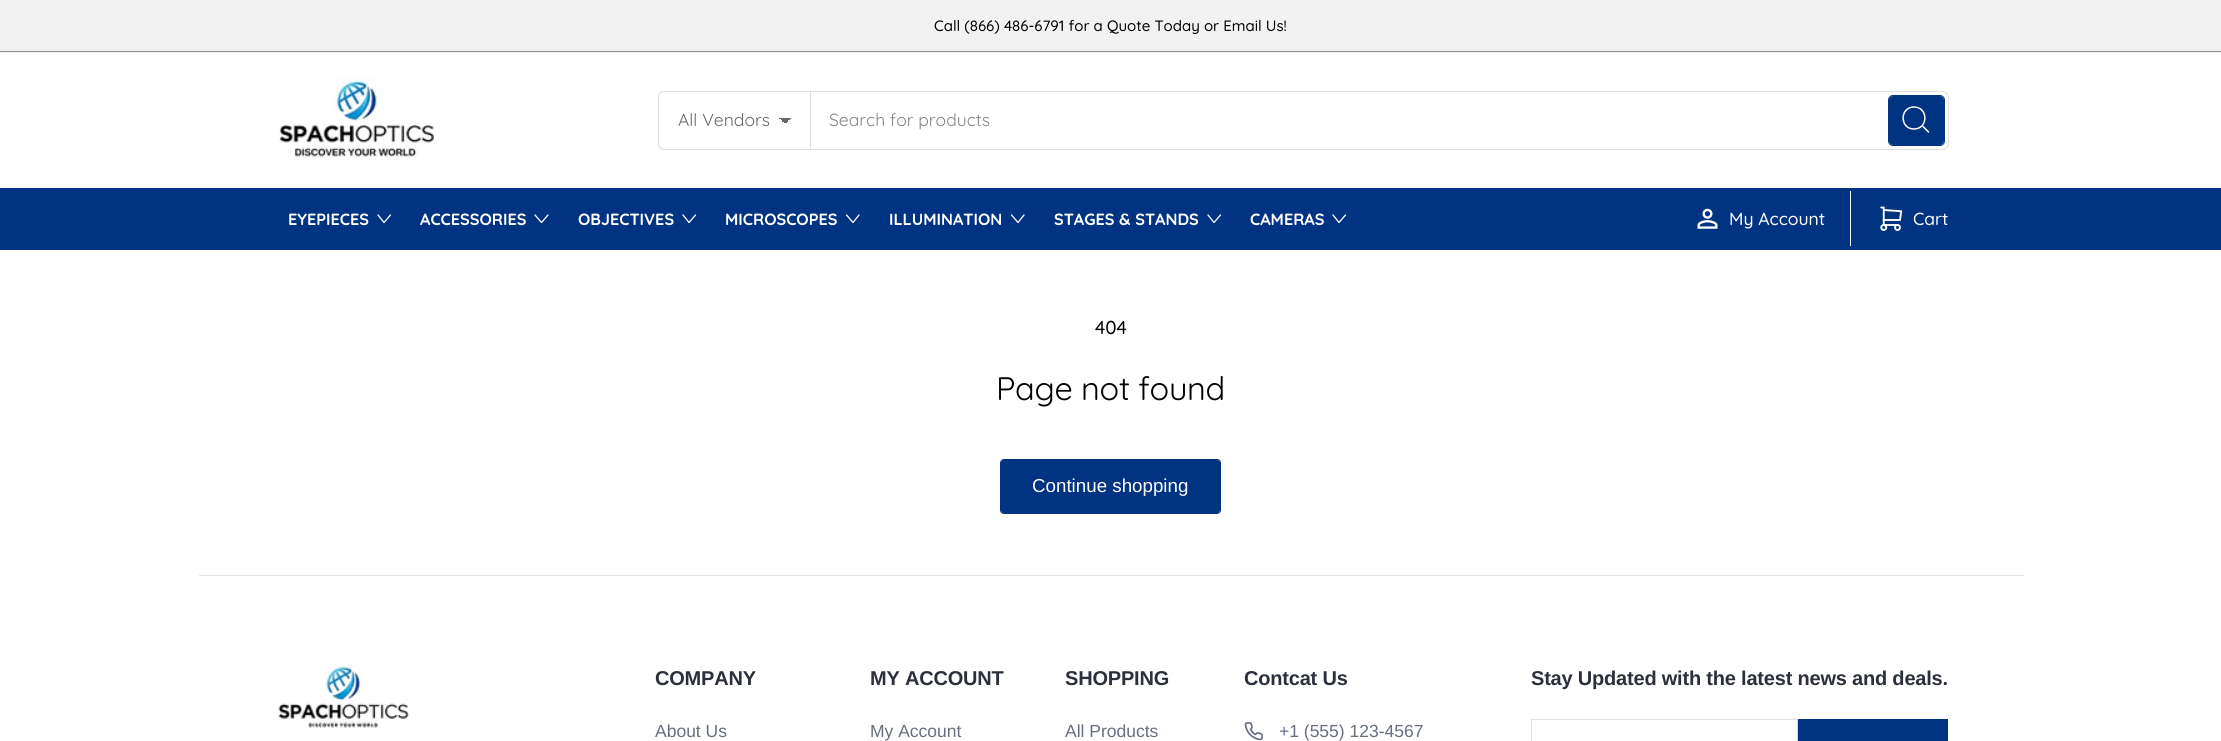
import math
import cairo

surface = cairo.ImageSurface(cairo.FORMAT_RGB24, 2221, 741)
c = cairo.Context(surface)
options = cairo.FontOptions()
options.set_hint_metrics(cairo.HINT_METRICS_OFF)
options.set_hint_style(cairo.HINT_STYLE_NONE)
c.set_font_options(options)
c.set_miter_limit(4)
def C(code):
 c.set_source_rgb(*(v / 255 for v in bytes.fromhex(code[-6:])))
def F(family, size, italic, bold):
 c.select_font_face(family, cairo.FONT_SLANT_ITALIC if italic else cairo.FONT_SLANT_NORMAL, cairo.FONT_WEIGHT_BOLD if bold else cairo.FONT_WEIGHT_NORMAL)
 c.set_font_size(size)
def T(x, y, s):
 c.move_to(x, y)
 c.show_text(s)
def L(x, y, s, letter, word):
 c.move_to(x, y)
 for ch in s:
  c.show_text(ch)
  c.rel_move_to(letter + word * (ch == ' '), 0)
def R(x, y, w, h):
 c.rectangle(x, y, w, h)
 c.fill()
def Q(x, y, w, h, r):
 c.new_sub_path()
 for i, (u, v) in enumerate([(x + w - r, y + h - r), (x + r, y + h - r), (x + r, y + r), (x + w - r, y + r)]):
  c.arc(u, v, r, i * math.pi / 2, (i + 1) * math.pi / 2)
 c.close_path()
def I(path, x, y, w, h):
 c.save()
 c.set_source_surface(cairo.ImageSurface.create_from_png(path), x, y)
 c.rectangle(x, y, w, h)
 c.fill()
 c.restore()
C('ffffff')
c.paint()
C('f2f2f2')
R(0,0,2221,53)
C('8e8e8e')
R(0,51,2221,1)
F('Quicksand Medium',15,0,0)
C('000000')
T(934,31,'Call (866) 486-6791 for a Quote Today or Email Us!')
I('1.png',279,77,155,80)
Q(658.5,91.5,152,58,5.5)
C('dfdfdf')
c.set_line_width(1)
c.stroke()
C('ffffff')
c.new_path()
c.move_to(664,91)
c.line_to(811,91)
c.line_to(811,150)
c.line_to(664,150)
c.curve_to(660.5,150,658,147.5,658,144)
c.line_to(658,97)
c.curve_to(658,93.5,660.5,91,664,91)
c.close_path()
c.fill()
gradient = cairo.LinearGradient(785,118,791,124)
gradient.add_color_stop_rgba(.5,0.404,0.404,0.404,1)
gradient.add_color_stop_rgba(.5,1,1,1,1)
c.set_source(gradient)
R(785,118,6,5)
gradient = cairo.LinearGradient(779,124,785,118)
gradient.add_color_stop_rgba(.5,1,1,1,1)
gradient.add_color_stop_rgba(.5,0.404,0.404,0.404,1)
c.set_source(gradient)
R(779,118,6,5)
c.new_path()
c.move_to(664,91.5)
c.line_to(810.5,91.5)
c.line_to(810.5,149.5)
c.line_to(664,149.5)
c.curve_to(661,149.5,658.5,147,658.5,144)
c.line_to(658.5,97)
c.curve_to(658.5,94,661,91.5,664,91.5)
c.close_path()
C('dfdfdf')
c.stroke()
F('Quicksand',17.5,0,0)
C('676767')
T(678,126,'All Vendors')
C('dfdfdf')
c.set_fill_rule(cairo.FILL_RULE_EVEN_ODD)
c.new_path()
c.move_to(811,91)
c.line_to(1942,91)
c.curve_to(1946,91,1949,94,1949,98)
c.line_to(1949,144)
c.curve_to(1949,147,1946,150,1942,150)
c.line_to(811,150)
c.close_path()
c.move_to(811,92)
c.line_to(1942,92)
c.curve_to(1945,92,1948,95,1948,98)
c.line_to(1948,144)
c.curve_to(1948,147,1945,149,1942,149)
c.line_to(811,149)
c.close_path()
c.fill()
C('858585')
T(829,126,'Search for products')
Q(1888.5,95.5,56,50,4.5)
C('003381')
c.stroke()
Q(1889,96,55,49,4)
c.fill()
c.new_path()
c.move_to(1914,129)
c.curve_to(1928.5,129,1928.5,107,1914,107)
c.curve_to(1899.5,107,1899.5,129,1914,129)
c.close_path()
C('ffffff')
c.set_line_width(1.5)
c.stroke()
c.new_path()
c.move_to(1923,126.5)
c.line_to(1928.5,132)
c.set_line_cap(cairo.LINE_CAP_ROUND)
c.stroke()
C('003381')
R(0,188,2221,62)
F('Quicksand',16.25,0,1)
C('ffffff')
T(288,225,'EYEPIECES')
c.new_path()
c.move_to(390.5,215)
c.line_to(384,222.5)
c.line_to(378,215)
c.set_line_width(1.3)
c.set_line_join(cairo.LINE_JOIN_ROUND)
c.stroke()
T(420,225,'ACCESSORIES')
c.new_path()
c.move_to(548,215)
c.line_to(541.5,222.5)
c.line_to(535,215)
c.stroke()
T(578,225,'OBJECTIVES')
c.new_path()
c.move_to(695.5,215)
c.line_to(689,222.5)
c.line_to(683,215)
c.stroke()
T(725,225,'MICROSCOPES')
c.new_path()
c.move_to(859,215)
c.line_to(853,222.5)
c.line_to(846.5,215)
c.stroke()
T(889,225,'ILLUMINATION')
c.new_path()
c.move_to(1024,215)
c.line_to(1018,222.5)
c.line_to(1011.5,215)
c.stroke()
T(1054,225,'STAGES & STANDS')
c.new_path()
c.move_to(1220.5,215)
c.line_to(1214,222.5)
c.line_to(1208,215)
c.stroke()
T(1250,225,'CAMERAS')
c.new_path()
c.move_to(1345.5,215)
c.line_to(1339,222.5)
c.line_to(1333,215)
c.stroke()
R(1850,191,1,55)
I('2.png',1697,208,21,21)
F('Quicksand Medium',17.5,0,0)
T(1729,225,'My Account')
I('3.png',1880,206,23,25)
T(1913,225,'Cart')
F('Quicksand Medium',18.75,0,0)
C('000000')
T(1095,334,'404')
F('Quicksand',32.5,0,0)
L(996,400,'Page not found',-.3,0)
Q(1000.5,459.5,220,54,3.5)
C('003381')
c.set_line_width(1)
c.set_line_cap(cairo.LINE_CAP_BUTT)
c.set_line_join(cairo.LINE_JOIN_MITER)
c.stroke()
Q(1001,460,219,53,2.5)
c.fill()
F('Liberation Sans',18.75,0,0)
C('ffffff')
T(1032,492,'Continue shopping')
C('e2e4e9')
R(199,575,1825,1)
I('4.png',278,664,131,65)
F('Liberation Sans',20,0,1)
C('2b303b')
L(655,685,'COMPANY',-.2,0)
F('Liberation Sans',17.5,0,0)
C('676f7e')
T(655,737,'About Us')
F('Liberation Sans',20,0,1)
C('2b303b')
L(870,685,'MY ACCOUNT',-.2,0)
F('Liberation Sans',17.5,0,0)
C('676f7e')
T(870,737,'My Account')
F('Liberation Sans',20,0,1)
C('2b303b')
L(1065,685,'SHOPPING',-.2,0)
F('Liberation Sans',17.5,0,0)
C('676f7e')
T(1065,737,'All Products')
F('Liberation Sans',20,0,1)
C('2b303b')
L(1244,685,'Contcat Us',-.2,0)
I('5.png',1244,722,19,19)
F('Liberation Sans',17.5,0,0)
C('676f7e')
T(1279,737,'+1 (555) 123-4567')
F('Liberation Sans',20,0,1)
C('2b303b')
L(1531,685,'Stay Updated with the latest news and deals.',-.2,0)
c.rectangle(1531.5,719.5,266,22)
C('dfdfdf')
c.stroke()
C('003381')
R(1798,719,150,22)
surface.write_to_png('o.png')
